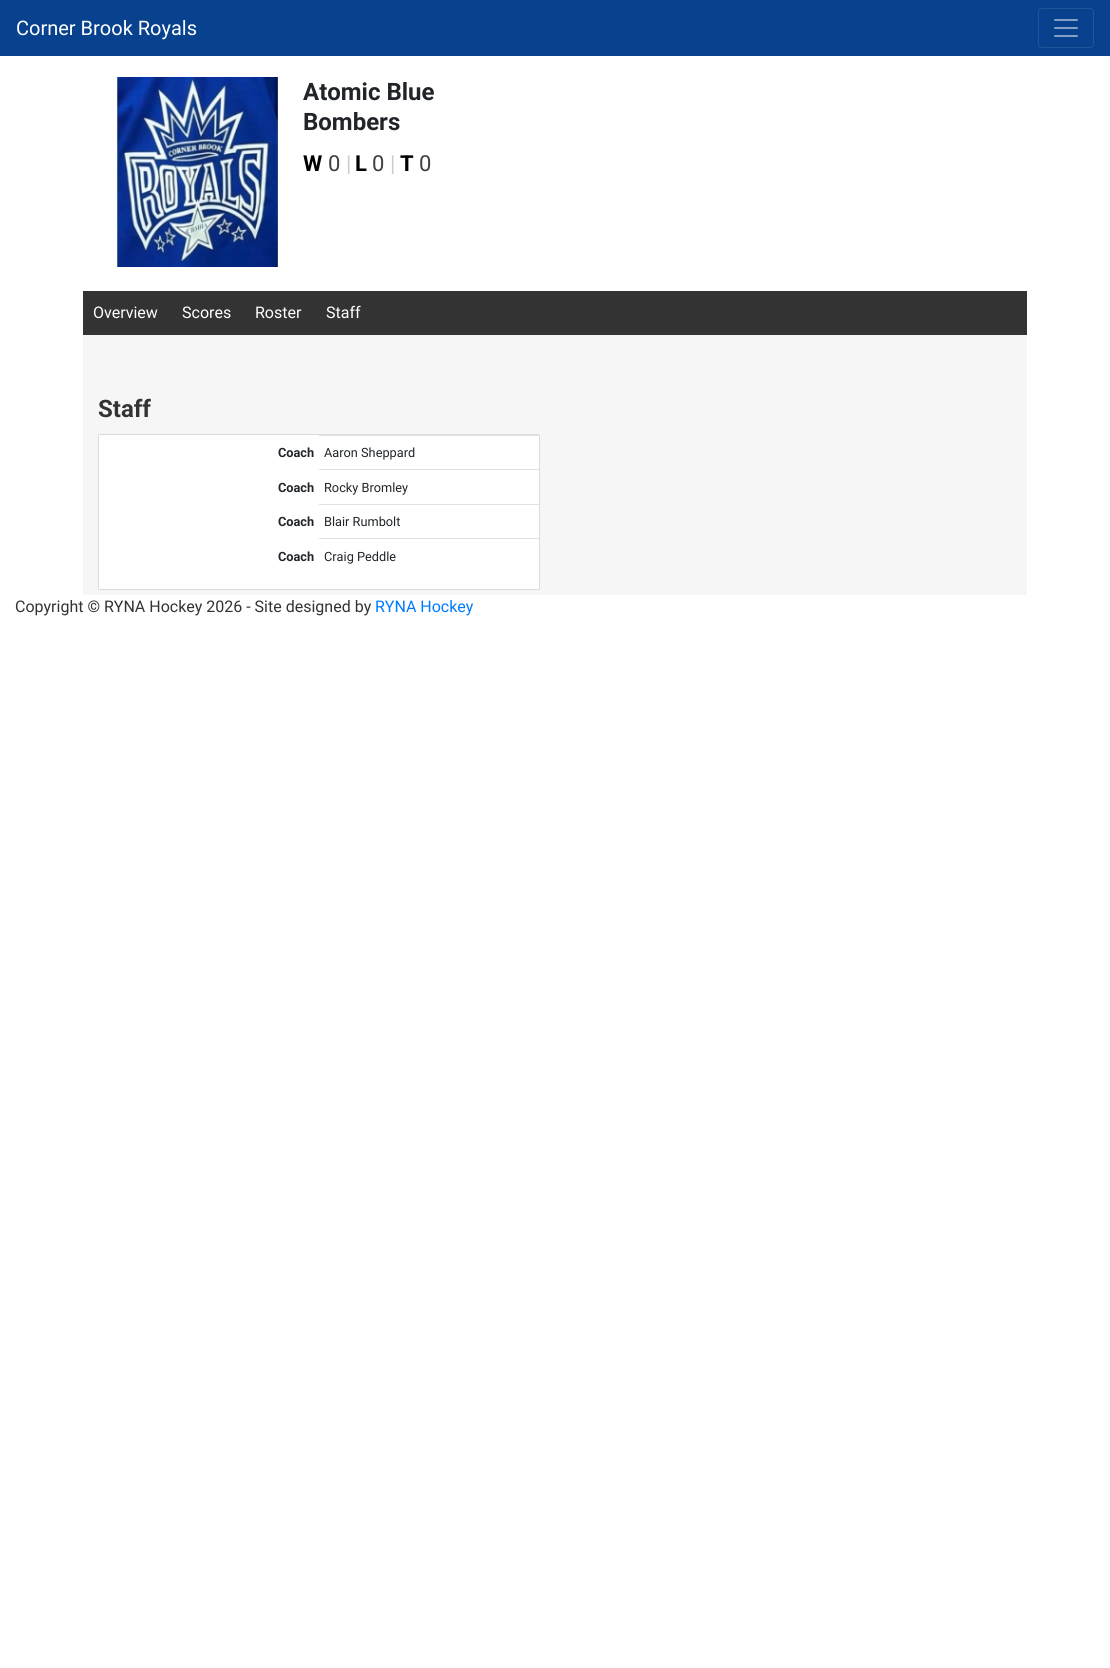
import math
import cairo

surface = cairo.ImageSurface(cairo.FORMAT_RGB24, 1110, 1668)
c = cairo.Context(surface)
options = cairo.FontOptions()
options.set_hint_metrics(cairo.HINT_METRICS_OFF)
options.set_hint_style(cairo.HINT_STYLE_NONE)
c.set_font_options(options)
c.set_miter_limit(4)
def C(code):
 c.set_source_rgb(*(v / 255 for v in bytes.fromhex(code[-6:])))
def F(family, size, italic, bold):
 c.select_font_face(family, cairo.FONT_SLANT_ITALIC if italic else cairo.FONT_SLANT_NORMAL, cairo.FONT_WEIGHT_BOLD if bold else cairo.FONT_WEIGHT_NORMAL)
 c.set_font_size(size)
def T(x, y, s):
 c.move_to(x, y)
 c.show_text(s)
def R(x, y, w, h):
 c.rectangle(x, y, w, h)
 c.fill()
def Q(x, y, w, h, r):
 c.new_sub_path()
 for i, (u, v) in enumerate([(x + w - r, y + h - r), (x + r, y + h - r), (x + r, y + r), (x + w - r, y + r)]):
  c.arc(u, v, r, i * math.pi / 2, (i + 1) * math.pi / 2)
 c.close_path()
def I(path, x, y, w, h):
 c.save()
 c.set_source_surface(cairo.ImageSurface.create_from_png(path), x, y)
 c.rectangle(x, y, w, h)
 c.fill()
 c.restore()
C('ffffff')
c.paint()
C('08418d')
R(0,0,1110,56)
F('Roboto',20,0,0)
C('ffffff')
T(16,35,'Corner Brook Royals')
Q(1038.5,8.5,55,39,3.5)
C('215498')
c.set_line_width(1)
c.stroke()
I('1.png',1054,19,24,18)
I('2.png',115,77,164,190)
F('Roboto',24,0,1)
C('212529')
T(303,100,'Atomic Blue')
T(303,130,'Bombers')
F('Roboto',22,0,1)
C('000000')
T(303,171,'W')
F('Roboto',22,0,0)
C('404040')
T(328,171,'0')
C('cccccc')
T(346,171,'|')
F('Roboto',22,0,1)
C('000000')
T(355,171,'L')
F('Roboto',22,0,0)
C('404040')
T(372,171,'0')
C('cccccc')
T(390,171,'|')
F('Roboto',22,0,1)
C('000000')
T(400,171,'T')
F('Roboto',22,0,0)
C('404040')
T(419,171,'0')
C('333333')
R(83,291,944,44)
F('Roboto',16,0,0)
C('ffffff')
T(93,318,'Overview')
T(182,318,'Scores')
T(255,318,'Roster')
T(326,318,'Staff')
C('f6f6f6')
R(83,335,944,260)
F('Roboto',24,0,1)
C('333333')
T(98,417,'Staff')
C('ffffff')
Q(98.5,434.5,441,155,1.5)
c.fill_preserve()
C('dcdcdc')
c.stroke()
C('ffffff')
R(99,435,1,1)
F('Roboto',12.75,0,1)
C('212529')
T(278,457,'Coach')
C('dee2e6')
R(319,435,220,1)
F('Roboto',12.75,0,0)
C('212529')
T(324,457,'Aaron Sheppard')
F('Roboto',12.75,0,1)
T(278,492,'Coach')
C('dee2e6')
R(319,469,220,1)
F('Roboto',12.75,0,0)
C('212529')
T(324,492,'Rocky Bromley')
F('Roboto',12.75,0,1)
T(278,526,'Coach')
C('dee2e6')
R(319,504,220,1)
F('Roboto',12.75,0,0)
C('212529')
T(324,526,'Blair Rumbolt')
F('Roboto',12.75,0,1)
T(278,561,'Coach')
C('dee2e6')
R(319,538,220,1)
F('Roboto',12.75,0,0)
C('212529')
T(324,561,'Craig Peddle')
F('Roboto',16,0,0)
C('333333')
T(15,612,'Copyright © RYNA Hockey 2026 - Site designed by')
C('007bff')
T(375,612,'RYNA Hockey')
surface.write_to_png('o.png')
